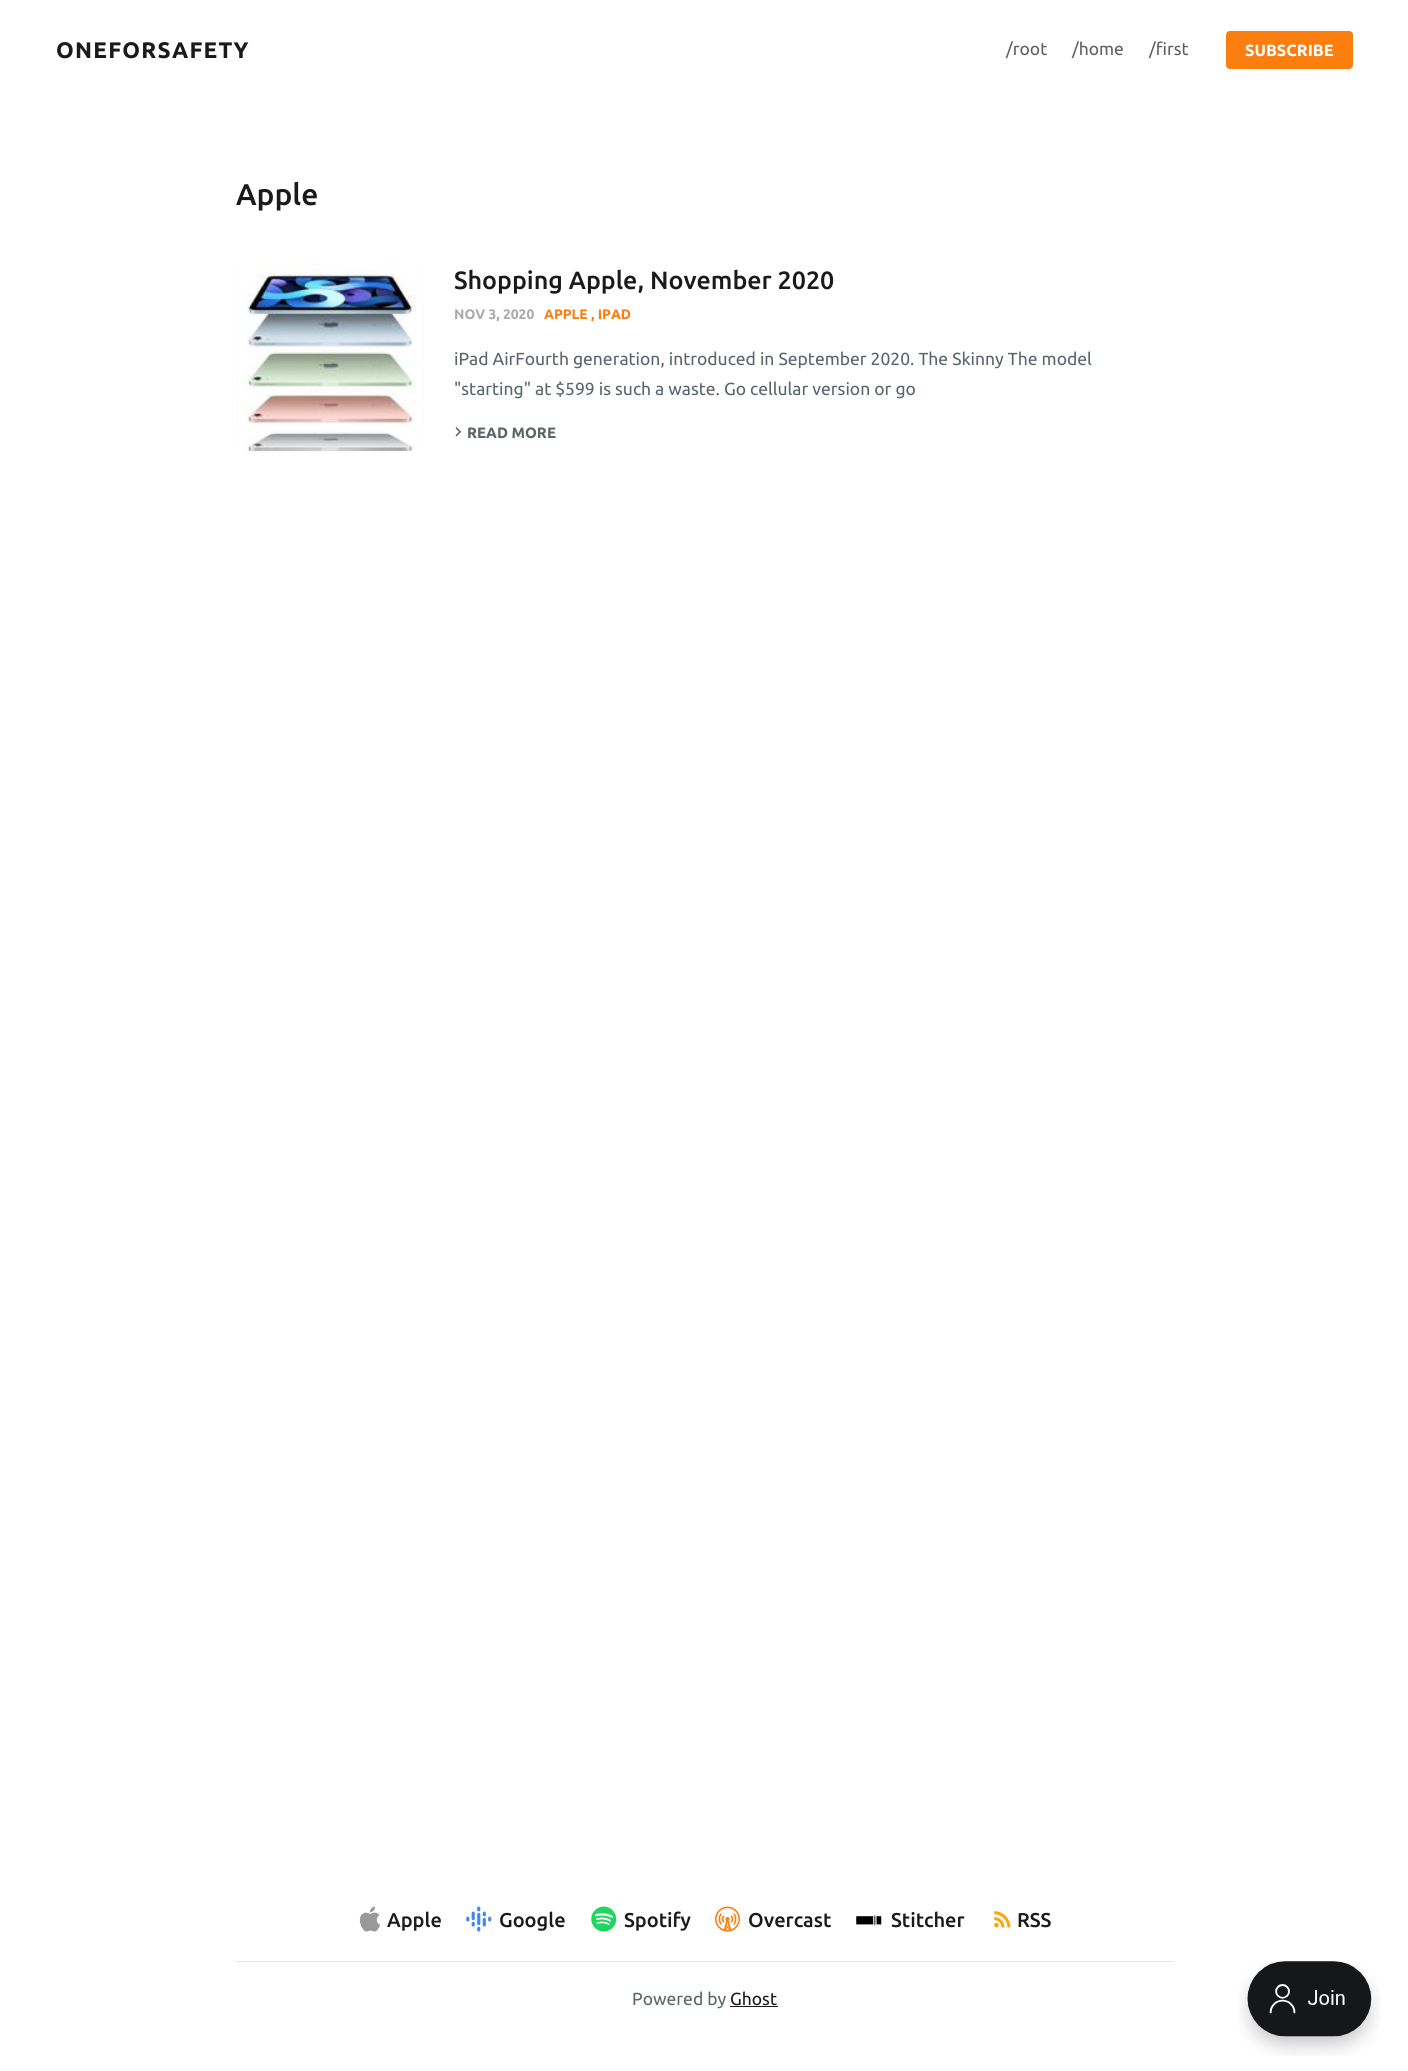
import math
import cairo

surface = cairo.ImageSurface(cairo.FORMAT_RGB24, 1408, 2071)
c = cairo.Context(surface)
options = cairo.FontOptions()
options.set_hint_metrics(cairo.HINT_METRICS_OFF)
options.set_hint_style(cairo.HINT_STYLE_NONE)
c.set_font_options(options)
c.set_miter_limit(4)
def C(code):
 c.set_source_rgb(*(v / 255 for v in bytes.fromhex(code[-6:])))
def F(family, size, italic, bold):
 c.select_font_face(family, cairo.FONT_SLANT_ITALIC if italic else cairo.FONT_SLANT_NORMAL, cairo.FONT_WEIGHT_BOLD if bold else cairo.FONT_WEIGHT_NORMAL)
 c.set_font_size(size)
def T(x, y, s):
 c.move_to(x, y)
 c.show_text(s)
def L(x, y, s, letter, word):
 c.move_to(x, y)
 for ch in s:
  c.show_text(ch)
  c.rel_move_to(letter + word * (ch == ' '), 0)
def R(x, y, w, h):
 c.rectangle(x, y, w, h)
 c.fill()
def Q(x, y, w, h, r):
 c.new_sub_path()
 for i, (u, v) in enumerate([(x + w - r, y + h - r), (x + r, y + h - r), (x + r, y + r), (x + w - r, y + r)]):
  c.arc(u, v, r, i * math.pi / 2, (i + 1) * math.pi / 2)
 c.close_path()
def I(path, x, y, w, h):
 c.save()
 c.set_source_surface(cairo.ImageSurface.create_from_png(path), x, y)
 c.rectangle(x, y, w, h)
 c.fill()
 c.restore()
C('ffffff')
c.paint()
F('Ubuntu',22.5,0,1)
C('1a1a1a')
L(56,58,'ONEFORSAFETY',1.25,0)
F('Ubuntu',17.5,0,0)
C('5f5f5f')
T(1006,55,'/root')
T(1072,55,'/home')
T(1149,55,'/first')
C('fc7e0f')
Q(1226,31,127,38,4)
c.fill()
F('Ubuntu',16.25,0,1)
C('ffffff')
T(1245,56,'SUBSCRIBE')
F('Ubuntu Medium',30,0,0)
C('1a1a1a')
T(236,205,'Apple')
C('f6f6f6')
Q(236,264,188,187,4)
c.fill()
I('1.png',236,264,188,188)
F('Ubuntu Medium',25,0,0)
C('1a1a1a')
T(454,289,'Shopping Apple, November 2020')
F('Ubuntu',13.75,0,1)
C('aaaaaa')
T(454,319,'NOV 3, 2020')
C('fc7e0f')
T(544,319,'APPLE , IPAD')
F('Ubuntu',17.5,0,0)
C('5a656b')
T(454,365,'iPad AirFourth generation, introduced in September 2020. The Skinny The model')
T(454,395,'"starting" at $599 is such a waste. Go cellular version or go')
I('2.png',455,427,7,10)
F('Ubuntu',15,0,1)
T(467,438,'READ MORE')
C('e6e6e6')
R(236,1961,938,1)
I('3.png',359,1906,21,26)
F('Ubuntu Medium',20,0,0)
C('1a1a1a')
T(387,1927,'Apple')
I('4.png',466,1906,26,26)
T(499,1927,'Google')
I('5.png',591,1906,26,26)
T(624,1927,'Spotify')
I('6.png',715,1906,25,26)
T(748,1927,'Overcast')
I('7.png',856,1915,26,11)
T(891,1927,'Stitcher')
I('8.png',994,1911,17,17)
T(1017,1927,'RSS')
F('Ubuntu',17.5,0,0)
C('5a656b')
T(632,2005,'Powered by')
C('1a1a1a')
T(730,2005,'Ghost')
R(730,2006,48,1)
I('9.png',1239,1961,141,95)
surface.write_to_png('o.png')
